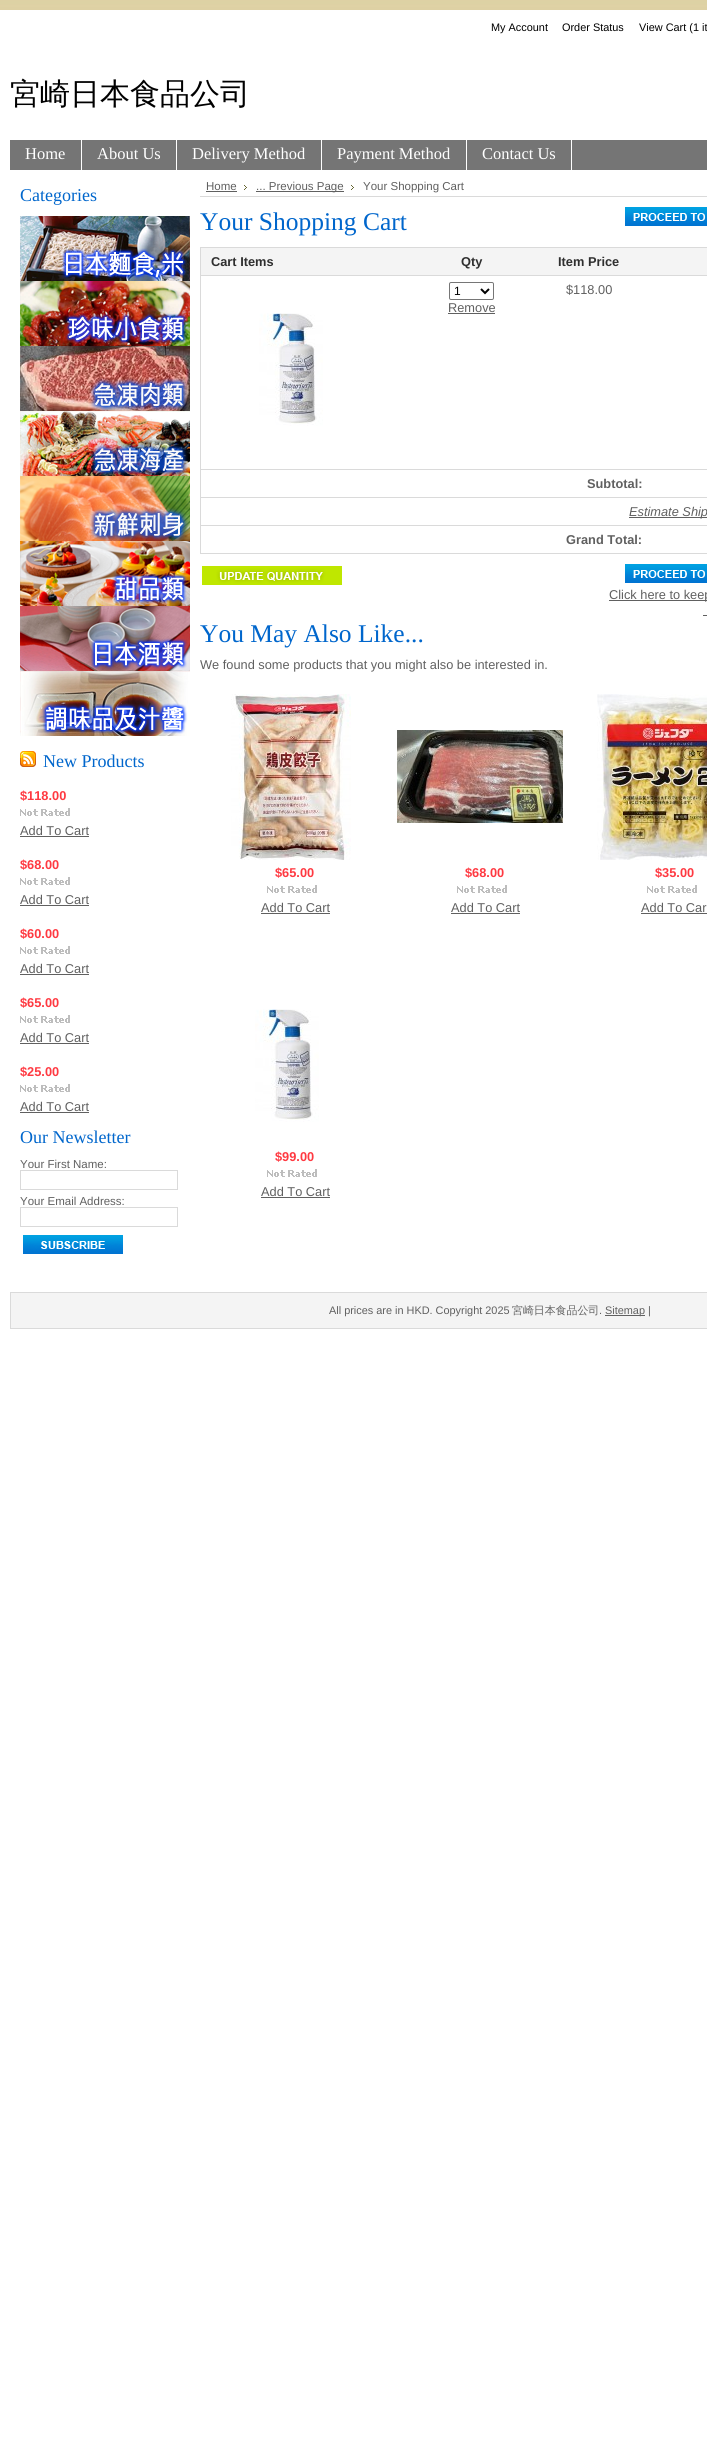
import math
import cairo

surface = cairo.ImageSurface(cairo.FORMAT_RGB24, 707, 2440)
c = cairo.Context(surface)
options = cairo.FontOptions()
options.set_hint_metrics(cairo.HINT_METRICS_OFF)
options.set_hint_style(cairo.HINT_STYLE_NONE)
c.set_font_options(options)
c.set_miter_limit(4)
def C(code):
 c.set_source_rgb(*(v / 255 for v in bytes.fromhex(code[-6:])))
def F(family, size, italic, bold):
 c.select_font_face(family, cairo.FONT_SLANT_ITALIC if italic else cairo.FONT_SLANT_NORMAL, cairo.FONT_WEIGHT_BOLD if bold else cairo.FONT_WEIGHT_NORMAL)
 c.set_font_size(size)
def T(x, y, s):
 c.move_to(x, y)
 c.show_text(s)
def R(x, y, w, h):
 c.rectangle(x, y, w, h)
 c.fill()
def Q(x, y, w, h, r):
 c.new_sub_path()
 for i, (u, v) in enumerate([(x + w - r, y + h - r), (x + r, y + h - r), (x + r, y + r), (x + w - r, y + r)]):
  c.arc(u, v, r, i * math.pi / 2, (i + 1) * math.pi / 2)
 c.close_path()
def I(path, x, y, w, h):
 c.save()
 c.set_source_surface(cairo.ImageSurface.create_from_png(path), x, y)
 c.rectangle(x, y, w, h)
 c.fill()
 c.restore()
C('ffffff')
c.paint()
I('1.png',0,0,707,10)
F('Liberation Sans',10.9,0,0)
C('000000')
T(491,31,'My Account')
T(562,31,'Order Status')
T(639,31,'View Cart (1 it')
F('WenQuanYi Zen Hei Medium',30,0,0)
T(10,104,'宮崎日本食品公司')
C('757575')
R(10,140,697,30)
C('ffffff')
R(81,140,1,30)
F('Liberation Serif',16.5,0,0)
T(25,159,'Home')
R(176,140,1,30)
T(97,159,'About Us')
R(321,140,1,30)
T(192,159,'Delivery Method')
R(466,140,1,30)
T(337,159,'Payment Method')
R(571,140,1,30)
T(482,159,'Contact Us')
F('Liberation Serif',18,0,0)
C('0066cc')
T(20,201,'Categories')
I('2.png',20,216,170,65)
I('3.png',20,281,170,65)
I('4.png',20,346,170,65)
I('5.png',20,411,170,65)
I('6.png',20,476,170,65)
I('7.png',20,541,170,65)
I('8.png',20,606,170,65)
I('9.png',20,671,170,65)
I('10.png',20,751,16,16)
T(43,767,'New Products')
F('Liberation Sans',12.8,0,1)
C('ff3941')
T(20,800,'$118.00')
I('11.png',20,808,50,8)
F('Liberation Sans',12.8,0,0)
C('606060')
T(20,835,'Add To Cart')
R(20,836,69,1)
F('Liberation Sans',12.8,0,1)
C('ff3941')
T(20,869,'$68.00')
I('11.png',20,877,50,8)
F('Liberation Sans',12.8,0,0)
C('606060')
T(20,904,'Add To Cart')
R(20,905,69,1)
F('Liberation Sans',12.8,0,1)
C('ff3941')
T(20,938,'$60.00')
I('11.png',20,946,50,8)
F('Liberation Sans',12.8,0,0)
C('606060')
T(20,973,'Add To Cart')
R(20,974,69,1)
F('Liberation Sans',12.8,0,1)
C('ff3941')
T(20,1007,'$65.00')
I('11.png',20,1015,50,8)
F('Liberation Sans',12.8,0,0)
C('606060')
T(20,1042,'Add To Cart')
R(20,1043,69,1)
F('Liberation Sans',12.8,0,1)
C('ff3941')
T(20,1076,'$25.00')
I('11.png',20,1084,50,8)
F('Liberation Sans',12.8,0,0)
C('606060')
T(20,1111,'Add To Cart')
R(20,1112,69,1)
F('Liberation Serif',18,0,0)
C('0066cc')
T(20,1143,'Our Newsletter')
F('Liberation Sans',11.5,0,0)
C('606060')
T(20,1168,'Your First Name:')
c.rectangle(20.5,1170.5,157,19)
C('dadada')
c.set_line_width(1)
c.stroke()
C('606060')
T(20,1205,'Your Email Address:')
c.rectangle(20.5,1207.5,157,19)
C('dadada')
c.stroke()
I('12.png',23,1235,100,19)
R(200,196,507,1)
C('606060')
T(206,190,'Home')
R(206,191,31,1)
I('13.png',244,185,3,5)
R(256,191,88,1)
T(256,190,'... Previous Page')
I('13.png',351,185,3,5)
T(363,190,'Your Shopping Cart')
F('Liberation Serif',25.5,0,0)
C('0066cc')
T(200,230,'Your Shopping Cart')
I('14.png',625,207,82,19)
c.rectangle(200.5,247.5,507,306)
C('dadada')
c.stroke()
C('f4f4f4')
R(201,248,506,27)
C('dadada')
R(201,275,506,1)
F('Liberation Sans',12.8,0,1)
C('2f2f2f')
T(211,266,'Cart Items')
T(461,266,'Qty')
T(558,266,'Item Price')
Q(449.5,282.5,44,17,1.5)
C('767676')
c.stroke()
c.new_path()
c.move_to(481,289)
c.line_to(485,293)
c.line_to(489,289)
C('000000')
c.set_line_width(2)
c.stroke()
F('Liberation Sans',12,0,0)
T(454,295,'1')
F('Liberation Sans',12.8,0,0)
C('606060')
T(448,312,'Remove')
R(448,313,47,1)
T(566,294,'$118.00')
I('15.png',259,313,64,113)
C('dadada')
R(201,469,506,1)
F('Liberation Sans',12.8,0,1)
C('606060')
T(587,488,'Subtotal:')
C('dadada')
R(201,497,506,1)
C('606060')
R(629,517,78,1)
F('Liberation Sans',12.8,1,0)
T(629,516,'Estimate Ship')
C('dadada')
R(201,525,506,1)
F('Liberation Sans',12.8,0,1)
C('606060')
T(566,544,'Grand Total:')
I('16.png',202,566,140,19)
I('14.png',625,564,82,19)
R(609,600,98,1)
F('Liberation Sans',12.8,0,0)
T(609,599,'Click here to keep')
R(703,615,4,1)
F('Liberation Serif',25.5,0,0)
C('0066cc')
T(200,642,'You May Also Like...')
F('Liberation Sans',12.8,0,0)
C('606060')
T(200,669,'We found some products that you might also be interested in.')
I('17.png',231,694,120,166)
F('Liberation Sans',12.8,0,1)
C('ff3941')
T(275,877,'$65.00')
I('11.png',267,885,50,8)
F('Liberation Sans',12.8,0,0)
C('606060')
T(261,912,'Add To Cart')
R(261,913,69,1)
I('18.png',397,730,166,93)
F('Liberation Sans',12.8,0,1)
C('ff3941')
T(465,877,'$68.00')
I('11.png',457,885,50,8)
F('Liberation Sans',12.8,0,0)
C('606060')
T(451,912,'Add To Cart')
R(451,913,69,1)
I('19.png',597,694,110,166)
F('Liberation Sans',12.8,0,1)
C('ff3941')
T(655,877,'$35.00')
I('11.png',647,885,50,8)
F('Liberation Sans',12.8,0,0)
C('606060')
T(641,912,'Add To Car')
R(641,913,66,1)
I('15.png',255,1009,64,113)
F('Liberation Sans',12.8,0,1)
C('ff3941')
T(275,1161,'$99.00')
I('11.png',267,1169,50,8)
F('Liberation Sans',12.8,0,0)
C('606060')
T(261,1196,'Add To Cart')
R(261,1197,69,1)
C('f4f4f4')
c.rectangle(10.5,1292.5,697,36)
c.fill_preserve()
C('dadada')
c.set_line_width(1)
c.stroke()
F('Liberation Sans',10.9,0,0)
C('606060')
T(329,1314,'All prices are in HKD. Copyright 2025')
F('WenQuanYi Zen Hei Medium',10.9,0,0)
T(512,1314,'宮崎日本食品公司')
F('Liberation Sans',10.9,0,0)
T(599,1314,'.')
R(605,1315,40,1)
T(605,1314,'Sitemap |')
surface.write_to_png('o.png')
